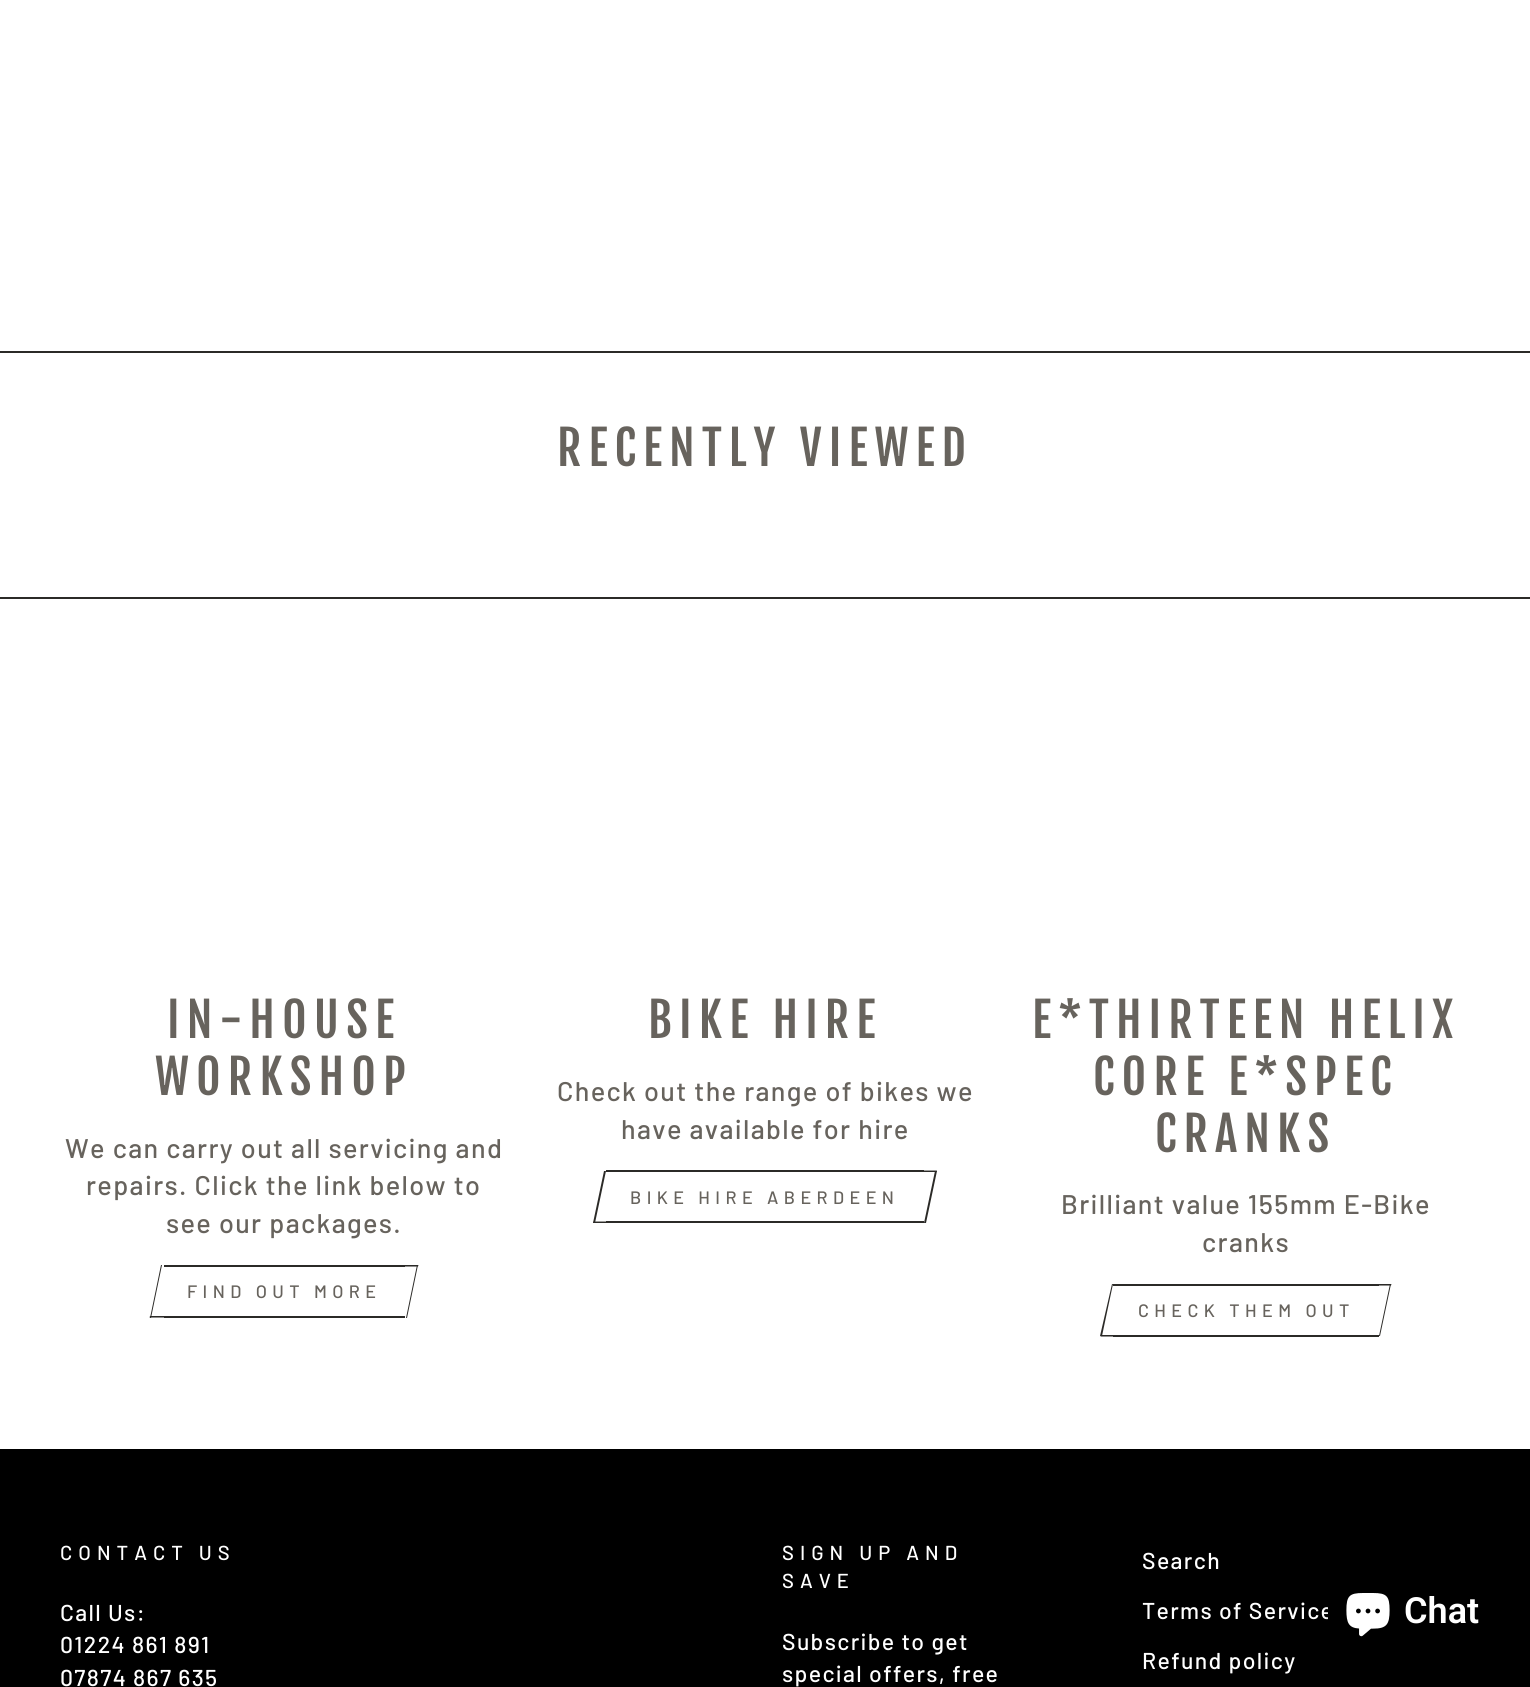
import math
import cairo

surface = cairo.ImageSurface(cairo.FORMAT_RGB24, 1530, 1687)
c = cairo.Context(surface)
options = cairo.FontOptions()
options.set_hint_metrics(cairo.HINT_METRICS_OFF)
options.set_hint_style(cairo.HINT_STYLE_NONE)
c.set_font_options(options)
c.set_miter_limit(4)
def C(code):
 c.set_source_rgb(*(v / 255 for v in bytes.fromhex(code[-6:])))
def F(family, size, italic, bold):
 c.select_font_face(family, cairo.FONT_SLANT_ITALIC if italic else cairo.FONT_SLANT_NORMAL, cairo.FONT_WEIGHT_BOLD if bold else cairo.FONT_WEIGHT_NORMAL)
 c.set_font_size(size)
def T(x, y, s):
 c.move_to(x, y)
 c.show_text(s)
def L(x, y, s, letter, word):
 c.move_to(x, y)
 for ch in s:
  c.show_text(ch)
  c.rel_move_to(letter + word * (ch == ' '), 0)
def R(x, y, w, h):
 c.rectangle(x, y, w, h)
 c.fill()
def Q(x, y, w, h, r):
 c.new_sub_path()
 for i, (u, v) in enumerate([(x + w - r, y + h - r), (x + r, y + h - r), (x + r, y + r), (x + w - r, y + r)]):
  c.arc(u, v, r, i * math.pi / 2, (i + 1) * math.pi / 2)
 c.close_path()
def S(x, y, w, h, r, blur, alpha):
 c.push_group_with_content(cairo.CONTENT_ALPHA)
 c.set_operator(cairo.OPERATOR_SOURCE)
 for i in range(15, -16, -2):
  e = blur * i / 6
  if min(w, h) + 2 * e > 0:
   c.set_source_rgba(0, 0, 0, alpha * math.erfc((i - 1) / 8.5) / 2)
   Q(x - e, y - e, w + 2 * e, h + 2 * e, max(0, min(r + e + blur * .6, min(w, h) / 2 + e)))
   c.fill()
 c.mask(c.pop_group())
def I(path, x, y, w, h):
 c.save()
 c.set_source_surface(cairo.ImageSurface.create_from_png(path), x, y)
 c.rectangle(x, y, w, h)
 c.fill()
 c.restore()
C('ffffff')
c.paint()
C('2b2a27')
R(0,351,1530,2)
F('Fjalla One',47.25,0,0)
C('67635d')
L(557,466,'RECENTLY VIEWED',7.1,0)
C('2b2a27')
R(0,597,1530,2)
C('67635d')
L(167,1038,'IN-HOUSE',7.1,0)
L(155,1095,'WORKSHOP',7.1,0)
F('Barlow Medium',27,0,0)
L(65,1158,'We can carry out all servicing and',1.35,0)
L(86,1195,'repairs. Click the link below to',1.35,0)
L(166,1233,'see our packages.',1.35,0)
C('2b2a27')
R(164,1265,241,2)
R(164,1316,241,2)
c.new_path()
c.move_to(150,1316)
c.line_to(180,1316)
c.line_to(179.5,1317.5)
c.line_to(149.5,1317.5)
c.close_path()
c.fill()
c.new_path()
c.move_to(161,1265)
c.line_to(162,1265)
c.line_to(151,1318)
c.line_to(150,1318)
c.close_path()
c.fill()
F('Barlow Medium',18,0,0)
C('67635d')
L(187,1298,'FIND OUT MORE',5.4,0)
C('2b2a27')
c.new_path()
c.move_to(388.5,1265)
c.line_to(418.5,1265)
c.line_to(418,1266.5)
c.line_to(388,1266.5)
c.close_path()
c.fill()
c.new_path()
c.move_to(417,1265)
c.line_to(418,1265)
c.line_to(407,1318)
c.line_to(406,1318)
c.close_path()
c.fill()
F('Fjalla One',47.25,0,0)
C('67635d')
L(648,1038,'BIKE HIRE',7.1,0)
F('Barlow Medium',27,0,0)
L(557,1101,'Check out the range of bikes we',1.35,0)
L(621,1139,'have available for hire',1.35,0)
C('2b2a27')
R(606,1170,318,2)
R(606,1221,318,2)
c.new_path()
c.move_to(593.5,1221.5)
c.line_to(623.5,1221.5)
c.line_to(623,1223)
c.line_to(593,1223)
c.close_path()
c.fill()
c.new_path()
c.move_to(604,1171)
c.line_to(606,1171)
c.line_to(595,1223)
c.line_to(593,1223)
c.close_path()
c.fill()
F('Barlow Medium',18,0,0)
C('67635d')
L(630,1204,'BIKE HIRE ABERDEEN',5.4,0)
C('2b2a27')
c.new_path()
c.move_to(907,1170.5)
c.line_to(937,1170.5)
c.line_to(936.5,1172)
c.line_to(906.5,1172)
c.close_path()
c.fill()
c.new_path()
c.move_to(935,1171)
c.line_to(937,1171)
c.line_to(926,1223)
c.line_to(924,1223)
c.close_path()
c.fill()
F('Fjalla One',47.25,0,0)
C('67635d')
L(1032,1038,'E*THIRTEEN HELIX',7.1,0)
L(1093,1095,'CORE E*SPEC',7.1,0)
L(1155,1152,'CRANKS',7.1,0)
F('Barlow Medium',27,0,0)
L(1061,1214,'Brilliant value 155mm E-Bike',1.35,0)
L(1202,1252,'cranks',1.35,0)
C('2b2a27')
R(1113,1284,266,2)
R(1113,1335,266,2)
c.new_path()
c.move_to(1101,1335)
c.line_to(1131,1335)
c.line_to(1130.5,1336.5)
c.line_to(1100.5,1336.5)
c.close_path()
c.fill()
c.new_path()
c.move_to(1112,1284)
c.line_to(1113,1284)
c.line_to(1102,1336)
c.line_to(1100,1336)
c.close_path()
c.fill()
F('Barlow Medium',18,0,0)
C('67635d')
L(1138,1317,'CHECK THEM OUT',5.4,0)
C('2b2a27')
c.new_path()
c.move_to(1361.5,1284)
c.line_to(1391.5,1284)
c.line_to(1391,1285.5)
c.line_to(1361,1285.5)
c.close_path()
c.fill()
c.new_path()
c.move_to(1390,1284)
c.line_to(1391,1284)
c.line_to(1380,1336)
c.line_to(1379,1336)
c.close_path()
c.fill()
C('000000')
R(0,1449,1530,238)
F('Barlow Medium',20.25,0,0)
C('ffffff')
L(60,1560,'CONTACT US',6,0)
F('Barlow Medium',23,0,0)
L(60,1621,'Call Us:',1.35,0)
L(60,1653,'01224 861 891',1.35,0)
L(60,1686,'07874 867 635',1.35,0)
F('Barlow Medium',20.25,0,0)
L(782,1560,'SIGN UP AND',6,0)
L(782,1588,'SAVE',6,0)
F('Barlow Medium',23,0,0)
L(782,1650,'Subscribe to get',1.35,0)
L(782,1682,'special offers, free',1.35,0)
L(1142,1569,'Search',1.35,0)
L(1142,1619,'Terms of Service',1.35,0)
L(1142,1669,'Refund policy',1.35,0)
C('000000')
S(1328,1566,169,90,24,4,.15)
C('000000')
Q(1328,1566,169,90,24)
c.fill()
I('1.png',1346,1593,44,44)
F('Roboto SemiBold',36,0,0)
C('ffffff')
T(1404,1623,'Chat')
surface.write_to_png('o.png')
